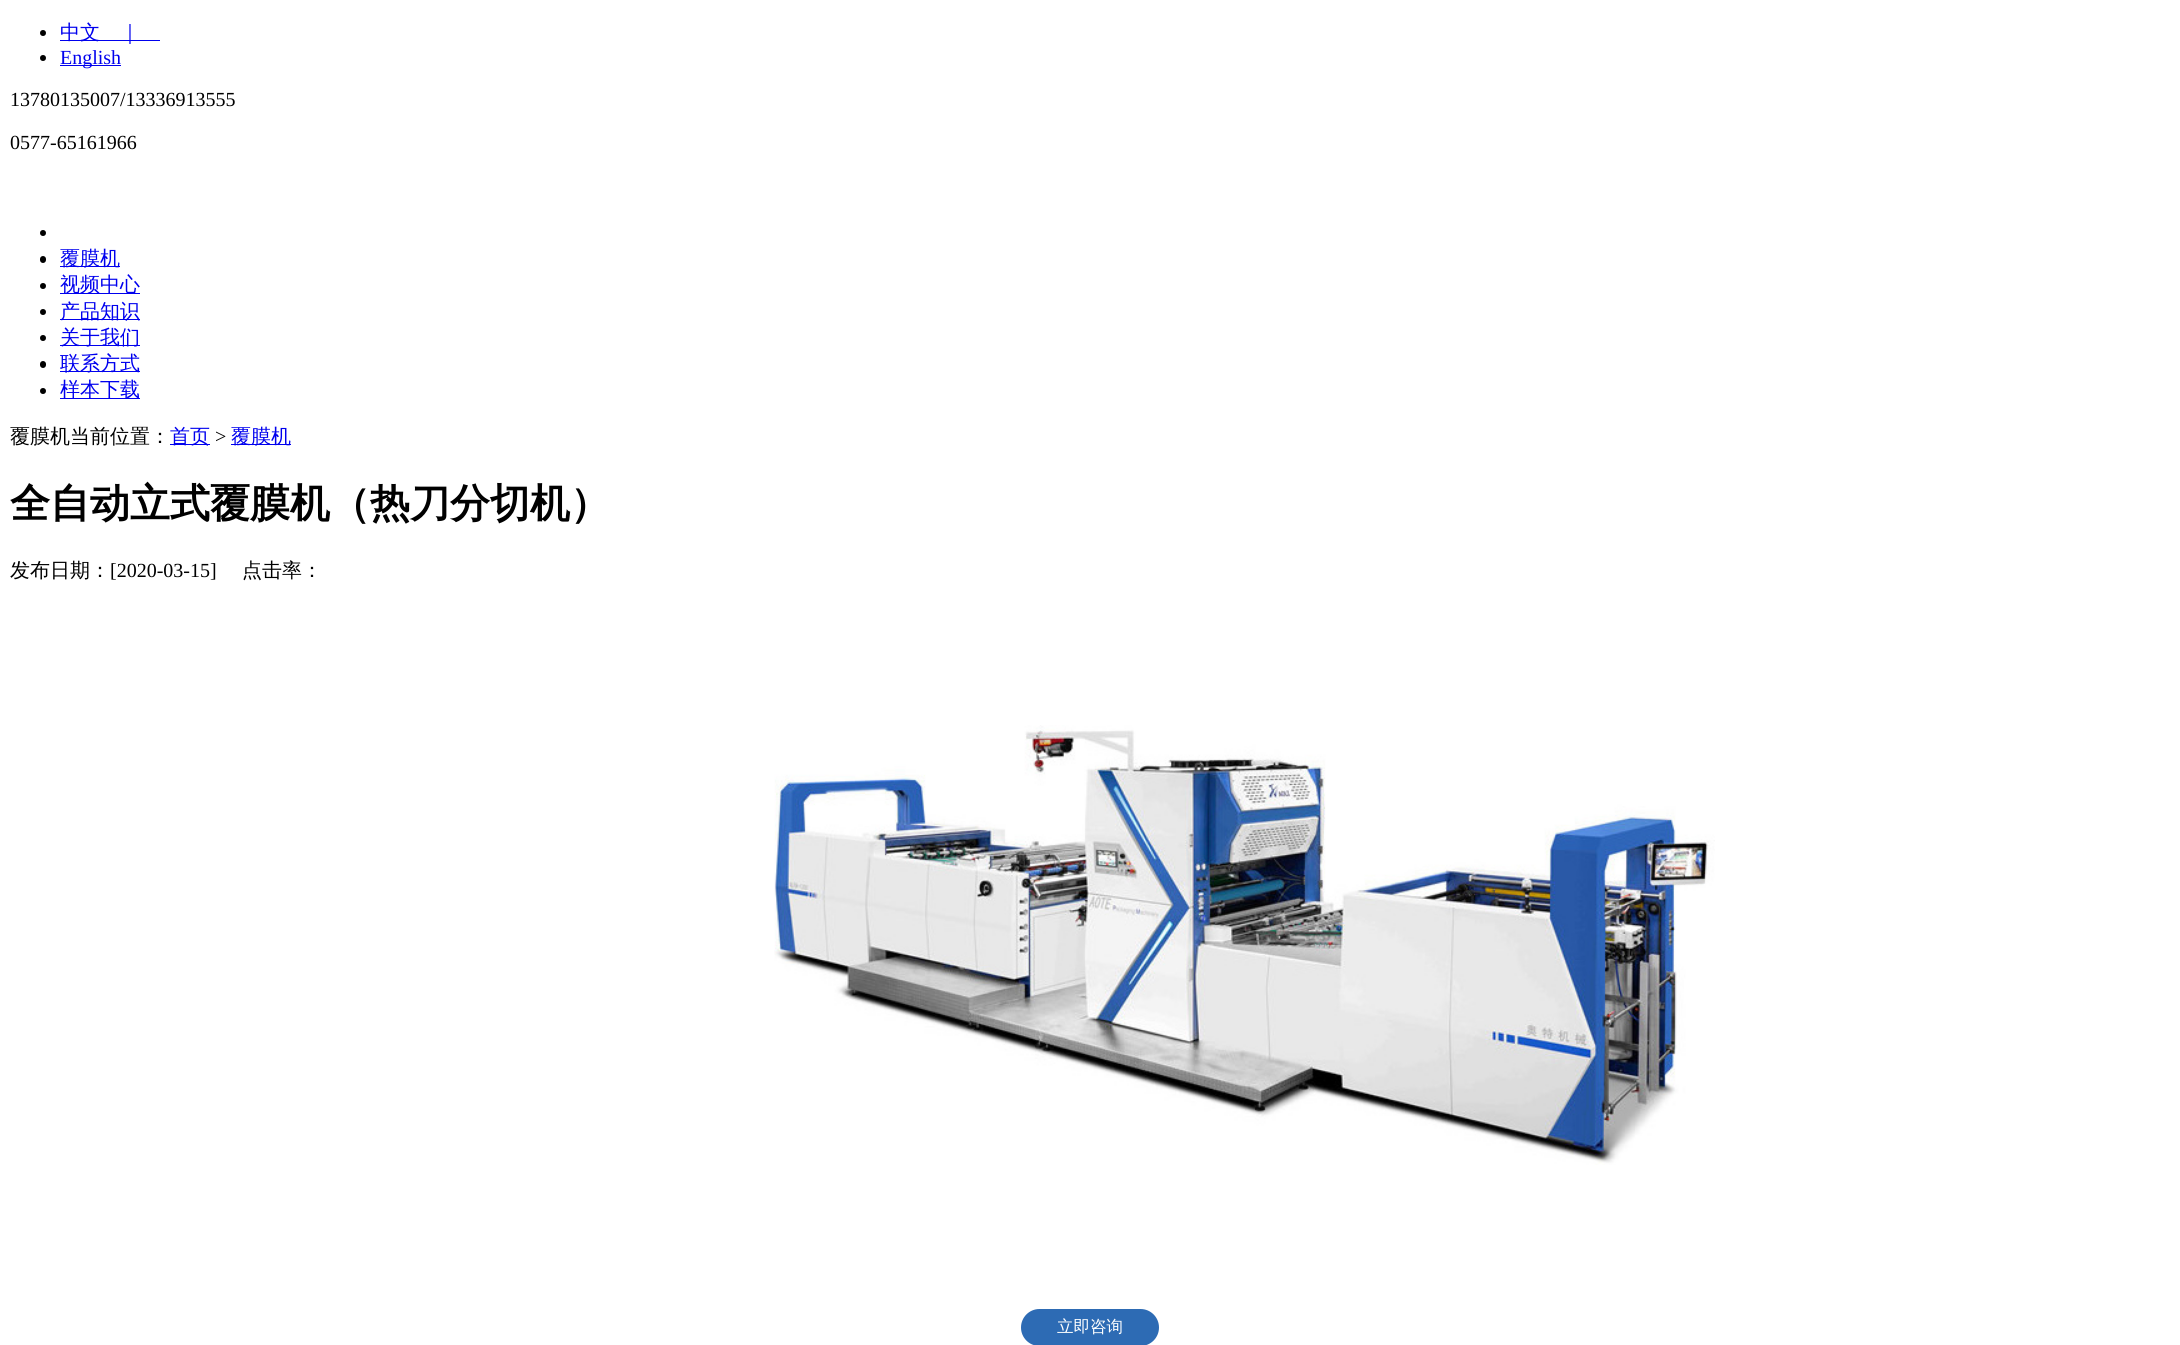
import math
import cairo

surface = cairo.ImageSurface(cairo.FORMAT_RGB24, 2180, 1345)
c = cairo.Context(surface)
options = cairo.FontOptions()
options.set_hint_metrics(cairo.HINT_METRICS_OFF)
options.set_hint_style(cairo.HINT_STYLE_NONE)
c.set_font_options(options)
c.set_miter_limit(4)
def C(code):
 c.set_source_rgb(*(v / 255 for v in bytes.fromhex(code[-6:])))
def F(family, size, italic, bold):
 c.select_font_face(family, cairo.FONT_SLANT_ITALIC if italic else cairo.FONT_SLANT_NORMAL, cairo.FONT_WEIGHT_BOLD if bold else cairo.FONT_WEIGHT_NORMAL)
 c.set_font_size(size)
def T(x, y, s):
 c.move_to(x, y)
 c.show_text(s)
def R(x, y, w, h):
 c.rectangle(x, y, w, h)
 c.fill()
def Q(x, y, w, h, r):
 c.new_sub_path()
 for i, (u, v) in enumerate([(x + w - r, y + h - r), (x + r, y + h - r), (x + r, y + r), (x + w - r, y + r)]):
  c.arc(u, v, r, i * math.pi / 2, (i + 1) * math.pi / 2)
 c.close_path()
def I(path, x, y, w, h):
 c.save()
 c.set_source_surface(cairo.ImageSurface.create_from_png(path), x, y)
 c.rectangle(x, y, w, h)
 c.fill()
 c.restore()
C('ffffff')
c.paint()
C('000000')
c.arc(43,33,3,0,2 * math.pi)
c.fill()
C('0000ee')
R(60,40,100,1)
F('WenQuanYi Zen Hei Medium',20,0,0)
T(60,39,'中文　｜')
C('000000')
c.new_path()
c.arc(43,58,3,0,2 * math.pi)
c.fill()
C('0000ee')
R(60,65,61,1)
F('Liberation Serif',20,0,0)
T(60,64,'English')
C('000000')
T(10,106,'13780135007/13336913555')
T(10,149,'0577-65161966')
c.new_path()
c.arc(43,233,3,0,2 * math.pi)
c.fill()
Q(40,256,6,7,3)
c.fill()
C('0000ee')
R(60,266,60,1)
F('WenQuanYi Zen Hei Medium',20,0,0)
T(60,265,'覆膜机')
C('000000')
c.new_path()
c.arc(43,286,3,0,2 * math.pi)
c.fill()
C('0000ee')
R(60,293,80,1)
T(60,291,'视频中心')
C('000000')
c.new_path()
c.arc(43,312,3,0,2 * math.pi)
c.fill()
C('0000ee')
R(60,319,80,1)
T(60,318,'产品知识')
C('000000')
c.new_path()
c.arc(43,338,3,0,2 * math.pi)
c.fill()
C('0000ee')
R(60,345,80,1)
T(60,344,'关于我们')
C('000000')
Q(40,361,6,7,3)
c.fill()
C('0000ee')
R(60,371,80,1)
T(60,370,'联系方式')
C('000000')
c.new_path()
c.arc(43,391,3,0,2 * math.pi)
c.fill()
C('0000ee')
R(60,398,80,1)
T(60,396,'样本下载')
C('000000')
T(10,443,'覆膜机当前位置：')
C('0000ee')
R(170,444,40,1)
T(170,443,'首页')
F('Liberation Serif',20,0,0)
C('000000')
T(215,443,'>')
C('0000ee')
R(231,444,60,1)
F('WenQuanYi Zen Hei Medium',20,0,0)
T(231,443,'覆膜机')
F('WenQuanYi Zen Hei',40,0,1)
C('000000')
T(10,517,'全自动立式覆膜机（热刀分切机）')
F('WenQuanYi Zen Hei Medium',20,0,0)
T(10,577,'发布日期：')
F('Liberation Serif',20,0,0)
T(110,577,'[2020-03-15]')
F('WenQuanYi Zen Hei Medium',20,0,0)
T(242,577,'点击率：')
I('1.png',774,725,941,440)
C('2d6bb4')
Q(1021,1309,138,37,18.5)
c.fill()
F('WenQuanYi Zen Hei Medium',16.5,0,0)
C('ffffff')
T(1057,1332,'立即咨询')
surface.write_to_png('o.png')
